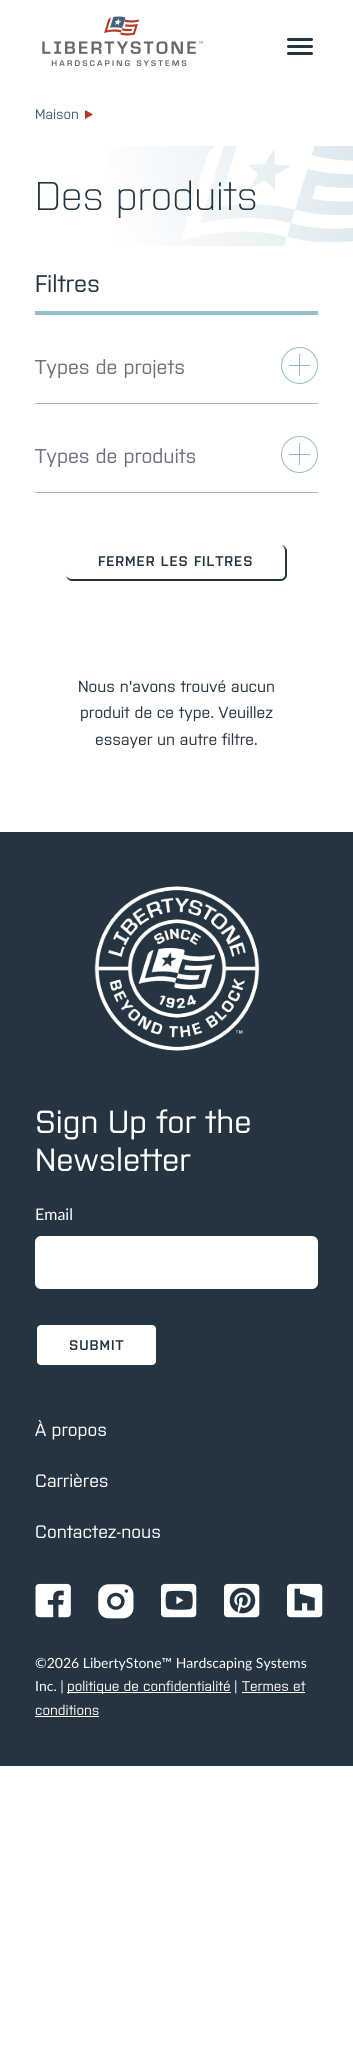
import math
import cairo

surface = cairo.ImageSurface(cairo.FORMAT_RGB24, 353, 2046)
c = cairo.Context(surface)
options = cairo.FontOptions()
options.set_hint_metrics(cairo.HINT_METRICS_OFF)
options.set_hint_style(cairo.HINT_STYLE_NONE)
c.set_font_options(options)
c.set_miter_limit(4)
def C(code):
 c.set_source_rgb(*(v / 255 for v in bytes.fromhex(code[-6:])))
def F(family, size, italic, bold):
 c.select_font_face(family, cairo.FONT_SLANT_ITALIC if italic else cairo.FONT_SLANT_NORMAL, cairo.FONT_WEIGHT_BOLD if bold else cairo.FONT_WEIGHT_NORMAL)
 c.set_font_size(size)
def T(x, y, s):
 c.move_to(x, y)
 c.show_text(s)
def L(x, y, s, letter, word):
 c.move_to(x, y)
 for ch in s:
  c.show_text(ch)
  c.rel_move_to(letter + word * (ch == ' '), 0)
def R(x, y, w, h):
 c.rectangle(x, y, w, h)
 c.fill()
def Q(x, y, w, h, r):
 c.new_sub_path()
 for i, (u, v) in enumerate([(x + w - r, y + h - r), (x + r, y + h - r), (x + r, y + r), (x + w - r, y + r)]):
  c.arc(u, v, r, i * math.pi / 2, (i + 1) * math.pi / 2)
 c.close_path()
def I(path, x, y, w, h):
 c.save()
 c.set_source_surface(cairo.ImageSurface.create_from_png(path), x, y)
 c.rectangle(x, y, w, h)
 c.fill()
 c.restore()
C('ffffff')
c.paint()
I('1.png',42,16,161,50)
C('253441')
Q(287,38,26,3,1.5)
c.fill()
Q(287,45,26,3,1.5)
c.fill()
Q(287,52,26,3,1.5)
c.fill()
F('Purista',14,0,0)
C('47627b')
T(35,119,'Maison')
C('ba3626')
c.new_path()
c.move_to(93,114.5)
c.line_to(85,119)
c.line_to(85,110)
c.close_path()
c.fill()
gradient = cairo.LinearGradient(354,149,-.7,243)
gradient.add_color_stop_rgba(0,0.863,0.91,0.937,1)
gradient.add_color_stop_rgba(.7,1,1,1,1)
c.set_source(gradient)
R(107,146,246,100)
I('2.png',181,146,172,100)
F('Purista Light',40,0,0)
C('253441')
T(35,210,'Des produits')
C('96bbd1')
R(35,311,283,4)
F('Purista',24,0,0)
C('253441')
T(35,292,'Filtres')
C('96bbd1')
R(35,403,283,1)
F('Purista',20,0,0)
C('6c7180')
T(35,374,'Types de projets')
C('96bbd1')
R(299,354,1,22)
c.new_path()
c.arc(299.5,365.5,18,0,2 * math.pi)
c.set_line_width(1)
c.stroke()
R(289,365,21,1)
R(35,492,283,1)
C('6c7180')
T(35,463,'Types de produits')
C('96bbd1')
R(299,443,1,22)
c.new_path()
c.arc(299.5,454.5,18,0,2 * math.pi)
c.stroke()
R(289,454,21,1)
C('253441')
c.set_fill_rule(cairo.FILL_RULE_EVEN_ODD)
c.new_path()
c.move_to(72,545)
c.line_to(281,545)
c.curve_to(284,545,287,548,287,551)
c.line_to(287,575)
c.curve_to(287,578,284,581,281,581)
c.line_to(72,581)
c.curve_to(69,581,66,578,66,575)
c.line_to(66,551)
c.curve_to(66,548,69,545,72,545)
c.close_path()
c.move_to(72,545)
c.line_to(281,545)
c.curve_to(283,545,285,548,285,551)
c.line_to(285,575)
c.curve_to(285,577,283,579,281,579)
c.line_to(72,579)
c.curve_to(69,579,66,577,66,575)
c.line_to(66,551)
c.curve_to(66,548,69,545,72,545)
c.close_path()
c.fill()
F('Purista SemiBold',14,0,0)
L(98,566,'FERMER LES FILTRES',1,0)
F('Purista',16,0,0)
T(78,692,'Nous n\'avons trouvé aucun')
T(80,718,'produit de ce type. Veuillez')
T(95,745,'essayer un autre filtre.')
R(0,832,353,934)
I('3.png',94,886,166,165)
F('Purista',32,0,0)
C('ffffff')
T(35,1133,'Sign Up for the')
T(35,1171,'Newsletter')
F('Lato',16,0,0)
T(35,1220,'Email')
Q(35,1236,283,53,6)
c.fill()
Q(36,1324,121,42,5)
c.fill_preserve()
C('253441')
c.set_line_width(2)
c.stroke()
F('Purista SemiBold',14,0,0)
L(69,1350,'SUBMIT',1,0)
F('Purista',18,0,0)
C('ffffff')
T(35,1436,'À propos')
T(35,1487,'Carrières')
T(35,1538,'Contactez-nous')
I('4.png',35,1583,36,35)
I('5.png',98,1584,36,35)
I('6.png',161,1583,36,35)
I('7.png',224,1583,36,35)
I('8.png',287,1583,36,35)
F('Lato',14,0,0)
T(35,1668,'©2026 LibertyStone™ Hardscaping Systems')
T(35,1691,'Inc. |')
R(67,1692,164,1)
F('Purista',14,0,0)
T(67,1691,'politique de confidentialité')
F('Lato',14,0,0)
T(234,1691,'|')
F('Purista',14,0,0)
T(242,1691,'Termes et')
R(242,1692,63,1)
T(35,1715,'conditions')
R(35,1716,64,1)
surface.write_to_png('o.png')
